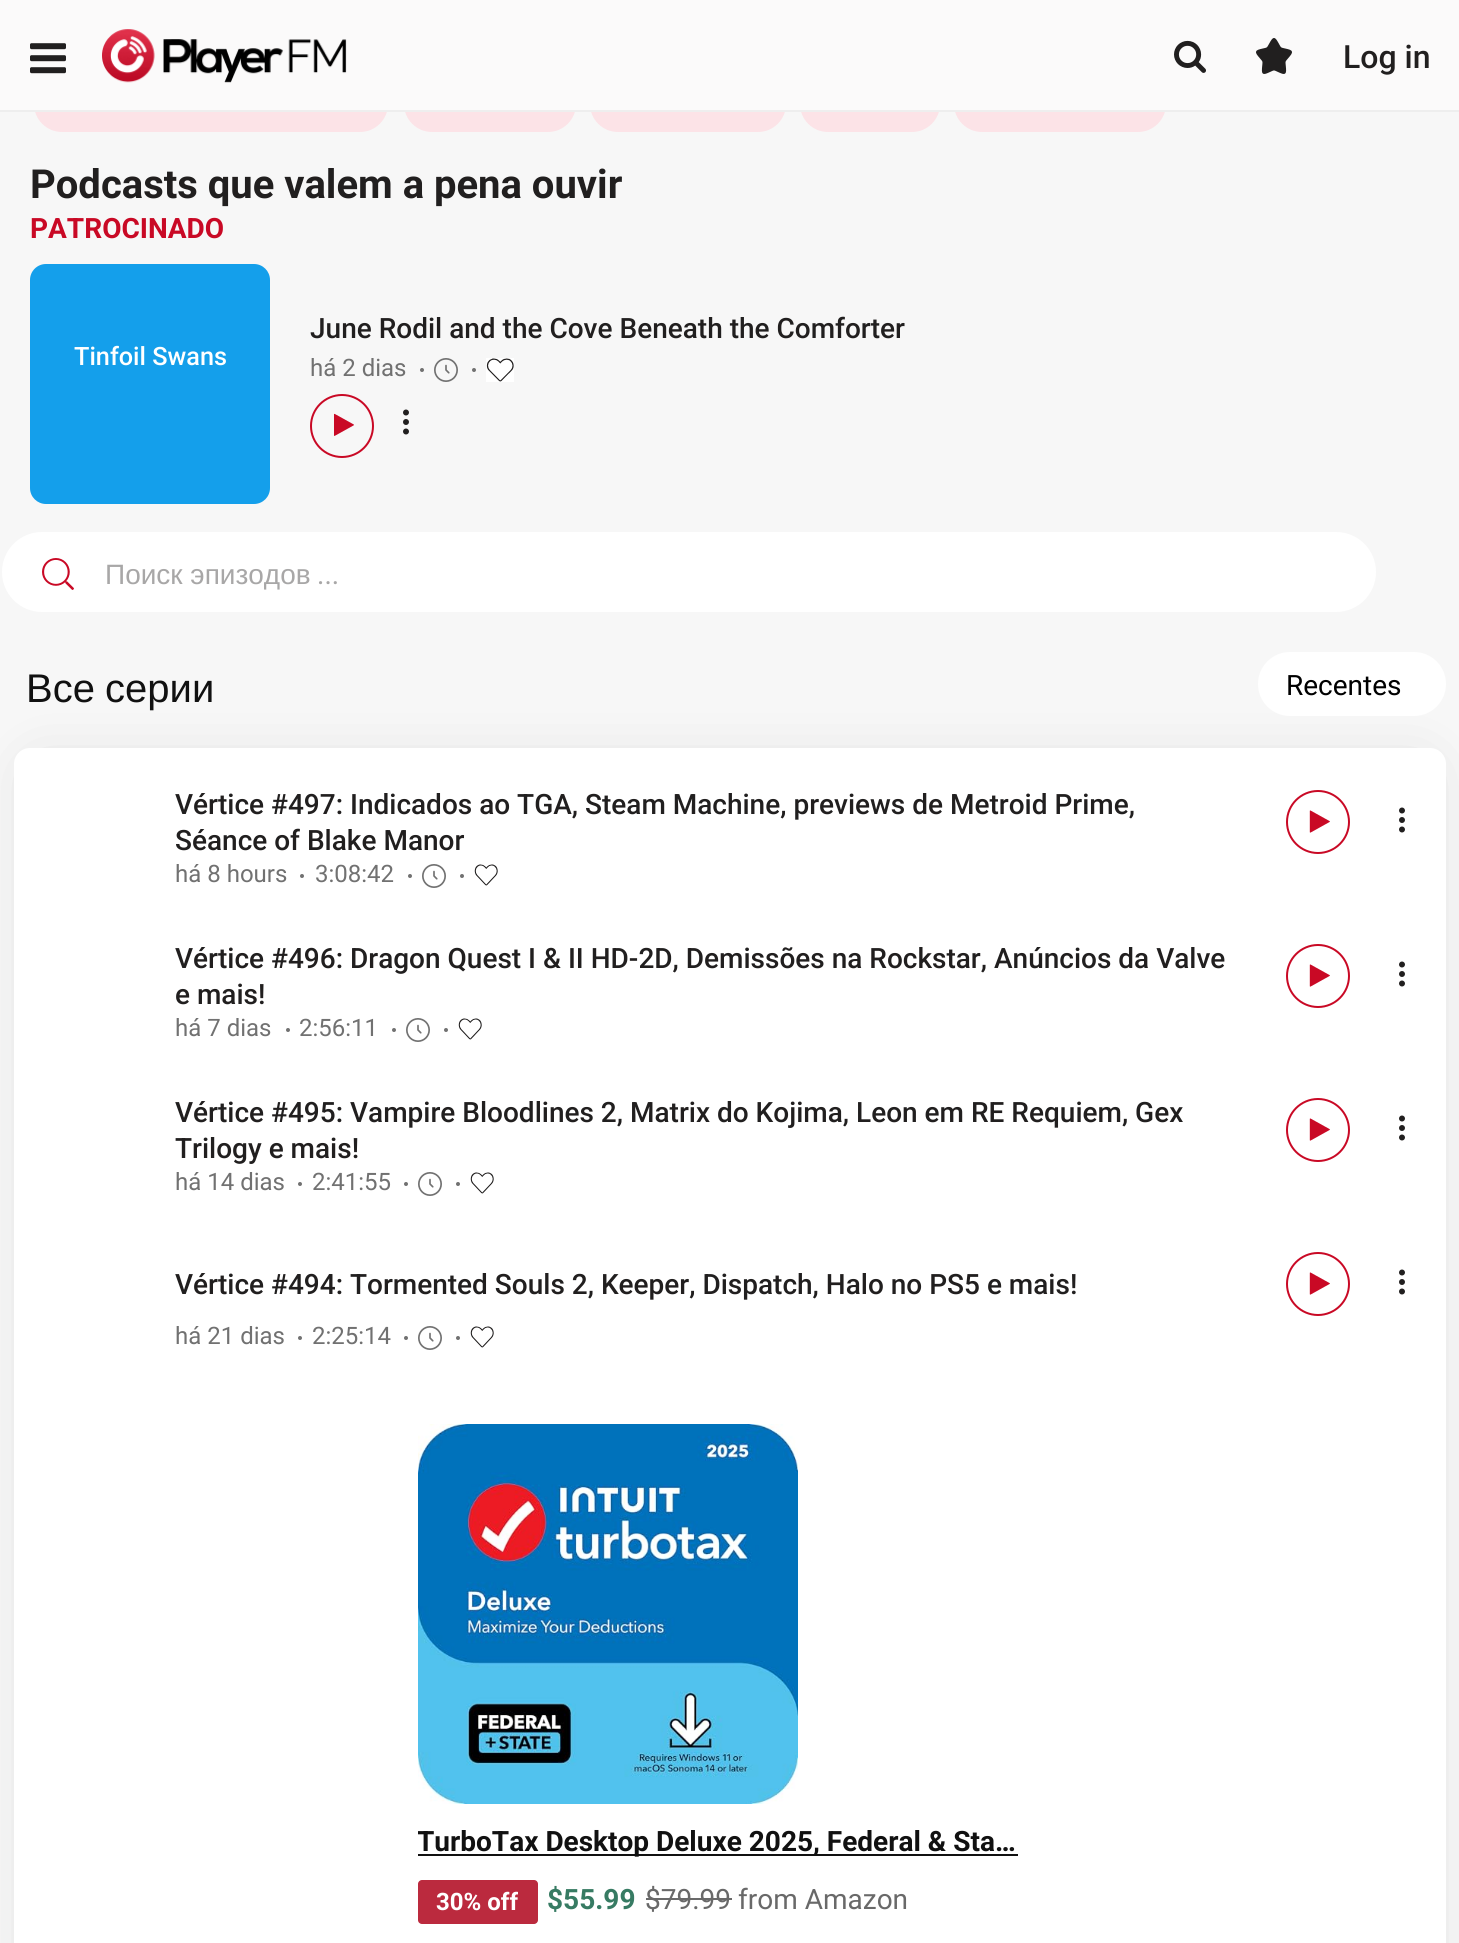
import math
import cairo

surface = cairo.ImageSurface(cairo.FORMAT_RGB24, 1459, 1943)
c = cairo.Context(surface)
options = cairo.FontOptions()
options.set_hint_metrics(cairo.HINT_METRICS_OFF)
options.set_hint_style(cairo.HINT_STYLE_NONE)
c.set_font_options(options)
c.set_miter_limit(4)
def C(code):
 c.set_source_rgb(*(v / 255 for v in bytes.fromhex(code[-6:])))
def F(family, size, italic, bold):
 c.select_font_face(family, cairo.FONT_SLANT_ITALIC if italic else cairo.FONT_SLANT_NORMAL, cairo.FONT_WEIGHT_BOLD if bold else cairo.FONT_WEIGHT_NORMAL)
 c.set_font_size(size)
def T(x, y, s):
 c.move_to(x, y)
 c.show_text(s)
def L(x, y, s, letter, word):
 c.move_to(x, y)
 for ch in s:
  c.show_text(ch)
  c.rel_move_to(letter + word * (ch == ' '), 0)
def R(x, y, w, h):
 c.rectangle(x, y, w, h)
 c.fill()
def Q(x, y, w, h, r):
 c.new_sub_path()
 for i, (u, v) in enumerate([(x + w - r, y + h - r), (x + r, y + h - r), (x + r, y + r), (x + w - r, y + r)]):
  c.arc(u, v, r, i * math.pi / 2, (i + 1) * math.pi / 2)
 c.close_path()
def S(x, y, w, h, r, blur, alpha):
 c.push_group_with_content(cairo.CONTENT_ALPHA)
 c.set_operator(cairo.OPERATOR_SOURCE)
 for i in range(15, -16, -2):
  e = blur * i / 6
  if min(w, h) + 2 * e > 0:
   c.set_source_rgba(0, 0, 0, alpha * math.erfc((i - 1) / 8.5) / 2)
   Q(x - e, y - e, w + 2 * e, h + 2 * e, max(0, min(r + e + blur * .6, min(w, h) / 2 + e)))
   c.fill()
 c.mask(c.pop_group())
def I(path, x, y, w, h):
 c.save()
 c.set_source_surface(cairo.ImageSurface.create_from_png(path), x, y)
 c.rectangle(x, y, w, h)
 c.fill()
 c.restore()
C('f7f7f7')
c.paint()
C('fce3e7')
Q(35,77,352,54,27)
c.fill_preserve()
c.stroke()
Q(405,77,170,54,27)
c.fill_preserve()
c.stroke()
Q(591,77,194,54,27)
c.fill_preserve()
c.stroke()
Q(801,77,138,54,27)
c.fill_preserve()
c.stroke()
Q(955,77,210,54,27)
c.fill_preserve()
c.stroke()
C('fbfafa')
R(0,0,1459,110)
C('eeeeee')
R(0,110,1459,2)
I('1.png',30,43,36,31)
I('2.png',102,29,245,54)
I('3.png',1174,40,32,33)
I('4.png',1256,38,36,36)
F('Roboto Medium',32,0,0)
C('211f1f')
T(1343,68,'Log in')
F('Roboto',40,0,1)
T(30,198,'Podcasts que valem a pena ouvir')
F('Roboto',28,0,1)
C('c90925')
T(30,238,'PATROCINADO')
C('149feb')
Q(30,264,240,240,16)
c.fill()
F('Roboto Medium',25.25,0,0)
C('ffffff')
T(74,365,'Tinfoil Swans')
F('Roboto Medium',28,0,0)
C('211f1f')
T(310,338,'June Rodil and the Cove Beneath the Comforter')
c.new_path()
c.arc(342,426,31,0,2 * math.pi)
C('c90925')
c.stroke()
I('5.png',334,413,20,23)
I('6.png',403,409,6,26)
F('Roboto',24,0,0)
C('717171')
T(310,376,'há 2 dias')
c.new_path()
c.arc(422,370,2,0,2 * math.pi)
c.fill()
I('7.png',434,358,24,24)
c.arc(474,370,2,0,2 * math.pi)
c.fill()
I('8.png',486,358,28,24)
C('ffffff')
Q(2,532,1374,80,40)
c.fill()
I('9.png',42,558,32,32)
F('Liberation Sans',28,0,0)
C('a8a7a7')
T(105,584,'Поиск эпизодов')
F('Roboto',28,0,0)
T(317,584,'...')
C('211f1f')
S(38,772,1384,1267,0,32,.16)
C('ffffff')
Q(1258,652,188,64,32)
c.fill()
C('000000')
T(1286,695,'Recentes')
F('Liberation Sans',40,0,0)
C('111111')
L(26,702,'Все серии',0,-1)
C('ffffff')
Q(14,748,1432,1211,16)
c.fill()
F('Roboto Medium',28,0,0)
C('211f1f')
T(175,814,'Vértice #497: Indicados ao TGA, Steam Machine, previews de Metroid Prime,')
T(175,850,'Séance of Blake Manor')
c.new_path()
c.arc(1318,822,31,0,2 * math.pi)
C('c90925')
c.stroke()
I('10.png',1309,810,21,23)
I('11.png',1399,807,6,26)
F('Roboto',24,0,0)
C('717171')
T(175,882,'há 8 hours')
c.new_path()
c.arc(302,876,2,0,2 * math.pi)
c.fill()
T(315,882,'3:08:42')
c.new_path()
c.arc(410,876,2,0,2 * math.pi)
c.fill()
I('12.png',422,864,24,24)
c.arc(462,876,2,0,2 * math.pi)
c.fill()
I('13.png',474,864,24,22)
F('Roboto Medium',28,0,0)
C('211f1f')
T(175,968,'Vértice #496: Dragon Quest I & II HD-2D, Demissões na Rockstar, Anúncios da Valve')
T(175,1004,'e mais!')
c.new_path()
c.arc(1318,976,31,0,2 * math.pi)
C('c90925')
c.stroke()
I('10.png',1309,964,21,23)
I('11.png',1399,961,6,26)
F('Roboto',24,0,0)
C('717171')
T(175,1036,'há 7 dias')
c.new_path()
c.arc(288,1030,2,0,2 * math.pi)
c.fill()
T(299,1036,'2:56:11')
c.new_path()
c.arc(394,1030,2,0,2 * math.pi)
c.fill()
I('12.png',406,1018,24,24)
c.arc(446,1030,2,0,2 * math.pi)
c.fill()
I('13.png',458,1018,24,22)
F('Roboto Medium',28,0,0)
C('211f1f')
T(175,1122,'Vértice #495: Vampire Bloodlines 2, Matrix do Kojima, Leon em RE Requiem, Gex')
T(175,1158,'Trilogy e mais!')
c.new_path()
c.arc(1318,1130,31,0,2 * math.pi)
C('c90925')
c.stroke()
I('10.png',1309,1118,21,23)
I('11.png',1399,1115,6,26)
F('Roboto',24,0,0)
C('717171')
T(175,1190,'há 14 dias')
c.new_path()
c.arc(300,1184,2,0,2 * math.pi)
c.fill()
T(312,1190,'2:41:55')
c.new_path()
c.arc(406,1184,2,0,2 * math.pi)
c.fill()
I('12.png',418,1172,24,24)
c.arc(458,1184,2,0,2 * math.pi)
c.fill()
I('13.png',470,1172,24,22)
F('Roboto Medium',28,0,0)
C('211f1f')
T(175,1294,'Vértice #494: Tormented Souls 2, Keeper, Dispatch, Halo no PS5 e mais!')
c.new_path()
c.arc(1318,1284,31,0,2 * math.pi)
C('c90925')
c.stroke()
I('10.png',1309,1272,21,23)
I('11.png',1399,1269,6,26)
F('Roboto',24,0,0)
C('717171')
T(175,1344,'há 21 dias')
c.new_path()
c.arc(300,1338,2,0,2 * math.pi)
c.fill()
T(312,1344,'2:25:14')
c.new_path()
c.arc(406,1338,2,0,2 * math.pi)
c.fill()
I('12.png',418,1326,24,24)
c.arc(458,1338,2,0,2 * math.pi)
c.fill()
I('13.png',470,1326,24,22)
I('14.png',418,1424,380,380)
C('111111')
R(418,1854,600,2)
c.save()
c.rectangle(418,1826,600,32)
c.clip()
F('Roboto',28,0,1)
T(417,1851,'TurboTax Desktop Deluxe 2025, Federal & Sta…')
c.restore()
C('bb2a3e')
Q(418,1880,120,44,4)
c.fill()
F('Roboto',24,0,1)
C('ffffff')
T(436,1910,'30% off')
F('Roboto',28,0,1)
C('377b63')
T(547,1909,'$55.99')
F('Roboto',28,0,0)
C('696969')
T(645,1909,'$79.99 from Amazon')
R(646,1898,86,2)
surface.write_to_png('o.png')
